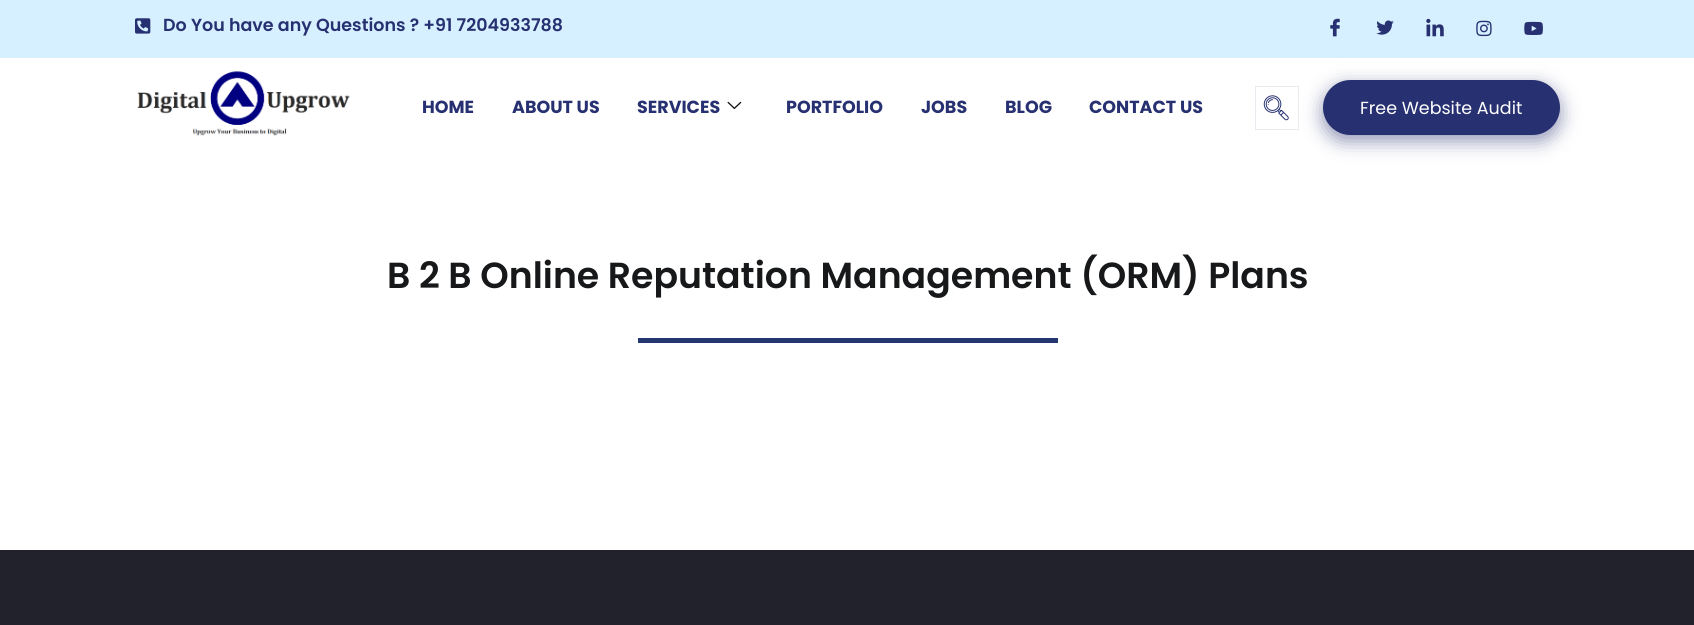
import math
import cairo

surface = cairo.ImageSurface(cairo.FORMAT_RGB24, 1694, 625)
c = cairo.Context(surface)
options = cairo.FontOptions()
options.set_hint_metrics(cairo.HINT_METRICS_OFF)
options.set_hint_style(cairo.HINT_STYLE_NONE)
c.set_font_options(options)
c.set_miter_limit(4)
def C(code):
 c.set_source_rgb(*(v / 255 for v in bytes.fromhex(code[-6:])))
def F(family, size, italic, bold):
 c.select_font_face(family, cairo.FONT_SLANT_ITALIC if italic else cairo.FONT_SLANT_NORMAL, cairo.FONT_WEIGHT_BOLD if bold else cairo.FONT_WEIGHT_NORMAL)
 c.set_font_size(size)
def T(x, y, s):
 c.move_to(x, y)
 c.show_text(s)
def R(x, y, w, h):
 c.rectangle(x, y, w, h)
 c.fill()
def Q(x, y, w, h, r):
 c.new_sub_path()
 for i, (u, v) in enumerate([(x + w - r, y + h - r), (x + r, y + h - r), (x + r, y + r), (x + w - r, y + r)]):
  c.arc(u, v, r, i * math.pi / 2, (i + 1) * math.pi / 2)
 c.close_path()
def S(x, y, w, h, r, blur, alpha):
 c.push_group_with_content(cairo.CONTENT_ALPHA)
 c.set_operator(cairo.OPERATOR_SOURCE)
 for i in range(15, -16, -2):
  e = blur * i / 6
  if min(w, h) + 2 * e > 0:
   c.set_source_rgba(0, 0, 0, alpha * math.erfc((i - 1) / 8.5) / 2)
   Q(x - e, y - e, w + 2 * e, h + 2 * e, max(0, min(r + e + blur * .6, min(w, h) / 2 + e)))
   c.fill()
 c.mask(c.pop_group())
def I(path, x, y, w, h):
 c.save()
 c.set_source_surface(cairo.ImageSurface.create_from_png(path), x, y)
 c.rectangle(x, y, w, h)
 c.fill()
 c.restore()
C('ffffff')
c.paint()
C('d6f0ff')
R(0,0,1694,58)
I('1.png',135,18,16,16)
F('Poppins SemiBold',17.5,0,0)
C('273171')
T(163,31,'Do You have any Questions ? +91 7204933788')
I('2.png',1330,18,10,19)
I('3.png',1376,20,18,15)
I('4.png',1426,18,18,19)
I('5.png',1476,20,16,17)
I('6.png',1524,21,19,14)
I('7.png',137,71,213,65)
F('Poppins',17.5,0,1)
T(422,113,'HOME')
T(512,113,'ABOUT US')
T(637,113,'SERVICES')
I('8.png',727,101,15,8)
T(786,113,'PORTFOLIO')
T(921,113,'JOBS')
T(1005,113,'BLOG')
T(1089,113,'CONTACT US')
c.rectangle(1255.5,86.5,43,43)
C('eaebf1')
c.set_line_width(1)
c.stroke()
I('9.png',1263,95,26,26)
C('273070')
S(1323,86,237,55,27.5,9.5,.51)
C('273171')
Q(1323,80,237,55,27.5)
c.fill()
F('Poppins',17.5,0,0)
C('ffffff')
T(1360,114,'Free Website Audit')
F('Poppins SemiBold',36.25,0,0)
C('161819')
T(387,288,'B 2 B Online Reputation Management (ORM) Plans')
C('243770')
R(638,338,420,5)
C('21222c')
R(0,550,1694,75)
surface.write_to_png('o.png')
